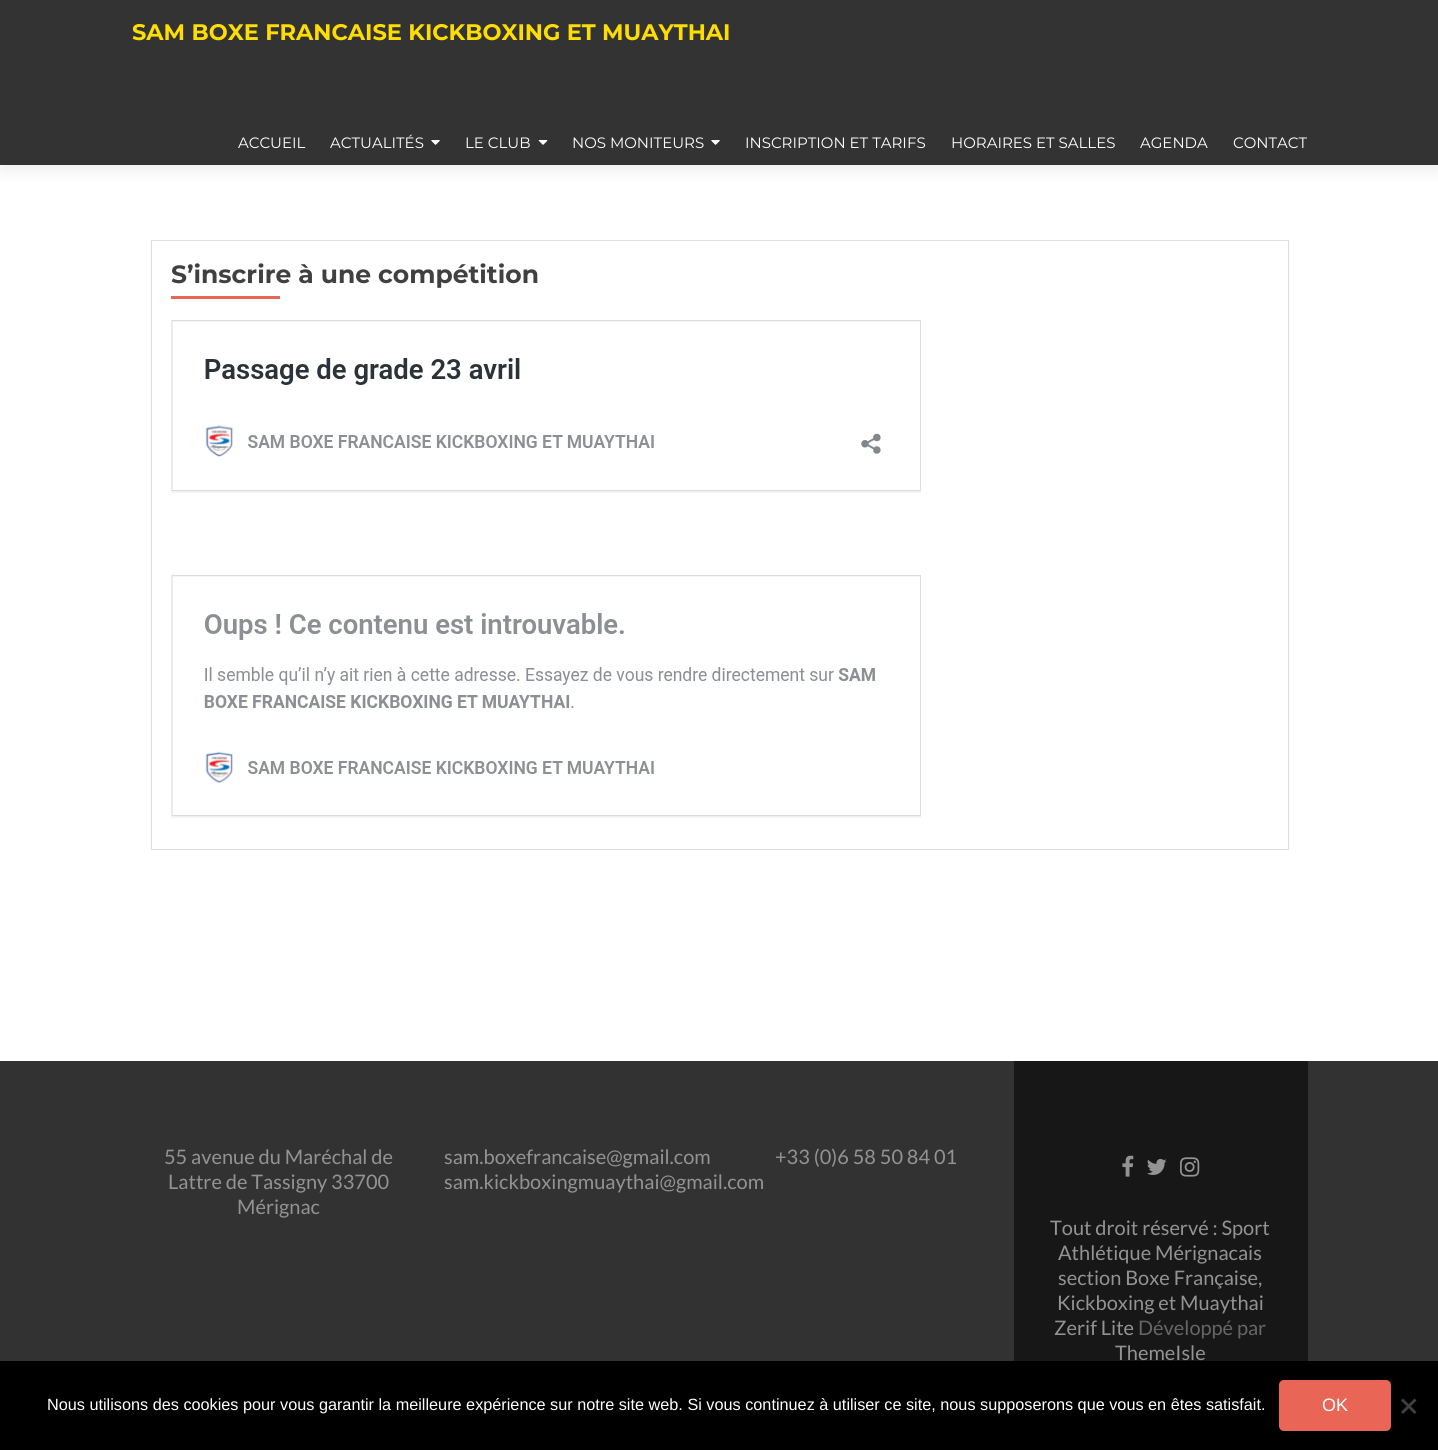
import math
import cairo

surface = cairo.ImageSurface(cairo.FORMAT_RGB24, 1438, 1450)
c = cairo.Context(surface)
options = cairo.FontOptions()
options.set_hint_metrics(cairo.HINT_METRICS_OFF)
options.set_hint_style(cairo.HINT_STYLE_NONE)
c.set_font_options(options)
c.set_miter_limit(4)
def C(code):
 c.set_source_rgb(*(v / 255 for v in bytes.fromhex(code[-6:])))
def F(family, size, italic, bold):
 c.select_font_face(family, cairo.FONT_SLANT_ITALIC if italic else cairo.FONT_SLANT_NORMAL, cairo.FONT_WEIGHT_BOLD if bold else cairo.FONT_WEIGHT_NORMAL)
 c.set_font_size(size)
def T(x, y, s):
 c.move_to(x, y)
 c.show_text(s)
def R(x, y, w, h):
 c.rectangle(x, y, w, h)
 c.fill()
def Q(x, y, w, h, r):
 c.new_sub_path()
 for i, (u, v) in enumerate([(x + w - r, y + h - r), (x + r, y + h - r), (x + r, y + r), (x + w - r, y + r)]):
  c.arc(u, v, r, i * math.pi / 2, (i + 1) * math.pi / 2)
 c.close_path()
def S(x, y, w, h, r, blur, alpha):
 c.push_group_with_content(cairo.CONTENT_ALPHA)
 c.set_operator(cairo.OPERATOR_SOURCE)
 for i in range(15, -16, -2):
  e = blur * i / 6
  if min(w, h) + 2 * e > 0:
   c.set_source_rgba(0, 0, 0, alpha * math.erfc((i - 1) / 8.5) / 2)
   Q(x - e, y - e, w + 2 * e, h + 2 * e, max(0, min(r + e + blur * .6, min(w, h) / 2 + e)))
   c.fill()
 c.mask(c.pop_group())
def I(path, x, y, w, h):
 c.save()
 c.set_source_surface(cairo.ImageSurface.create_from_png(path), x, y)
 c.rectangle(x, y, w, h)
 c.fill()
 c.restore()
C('ffffff')
c.paint()
C('323232')
S(0,6,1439,165,0,7,.08)
C('333333')
R(0,0,1438,165)
F('Montserrat',22.5,0,1)
C('ffdd00')
T(132,40,'SAM BOXE FRANCAISE KICKBOXING ET MUAYTHAI')
F('Montserrat',15,0,0)
C('ffffff')
T(238,148,'ACCUEIL')
T(330,148,'ACTUALITÉS')
I('1.png',431,140,9,5)
T(465,148,'LE CLUB')
I('2.png',538,140,10,5)
T(572,148,'NOS MONITEURS')
I('1.png',711,140,9,5)
T(745,148,'INSCRIPTION ET TARIFS')
T(951,148,'HORAIRES ET SALLES')
T(1140,148,'AGENDA')
T(1233,148,'CONTACT')
c.rectangle(151.5,240.5,1137,609)
C('dedede')
c.set_line_width(1)
c.stroke()
F('Montserrat',25,0,1)
C('404040')
T(171,283,'S’inscrire à une compétition')
C('e96656')
R(171,296,109,3)
I('3.png',171,320,750,173)
I('4.png',171,575,750,243)
C('323232')
R(0,1061,1438,300)
F('Lato',20,0,0)
C('939393')
T(164,1164,'55 avenue du Maréchal de')
T(168,1189,'Lattre de Tassigny 33700')
T(237,1214,'Mérignac')
T(444,1164,'sam.boxefrancaise@gmail.com')
T(444,1189,'sam.kickboxingmuaythai@gmail.com')
T(775,1164,'+33 (0)6 58 50 84 01')
C('171717')
R(1014,1061,294,300)
I('5.png',1122,1155,12,22)
I('6.png',1147,1158,20,17)
I('7.png',1180,1157,20,20)
C('939393')
T(1050,1235,'Tout droit réservé : Sport')
T(1058,1260,'Athlétique Mérignacais')
T(1058,1285,'section Boxe Française,')
T(1057,1310,'Kickboxing et Muaythai')
T(1054,1335,'Zerif Lite')
C('666666')
T(1138,1335,'Développé par')
C('939393')
T(1115,1360,'ThemeIsle')
C('000000')
R(0,1361,1438,89)
F('Liberation Sans',16.25,0,0)
C('ffffff')
T(47,1410,'Nous utilisons des cookies pour vous garantir la meilleure expérience sur notre site web. Si vous continuez à utiliser ce site, nous supposerons que vous en êtes satisfait.')
C('e96656')
Q(1279,1380,112,51,5)
c.fill()
F('Liberation Sans',18,0,0)
C('ffffff')
T(1322,1411,'OK')
C('404040')
c.new_path()
c.move_to(1414.5,1398.5)
c.line_to(1416.5,1400.5)
c.line_to(1403,1414)
c.line_to(1401,1412)
c.close_path()
c.fill()
c.new_path()
c.move_to(1401,1400.5)
c.line_to(1403,1398.5)
c.line_to(1416.5,1412)
c.line_to(1414.5,1414)
c.close_path()
c.fill()
surface.write_to_png('o.png')
